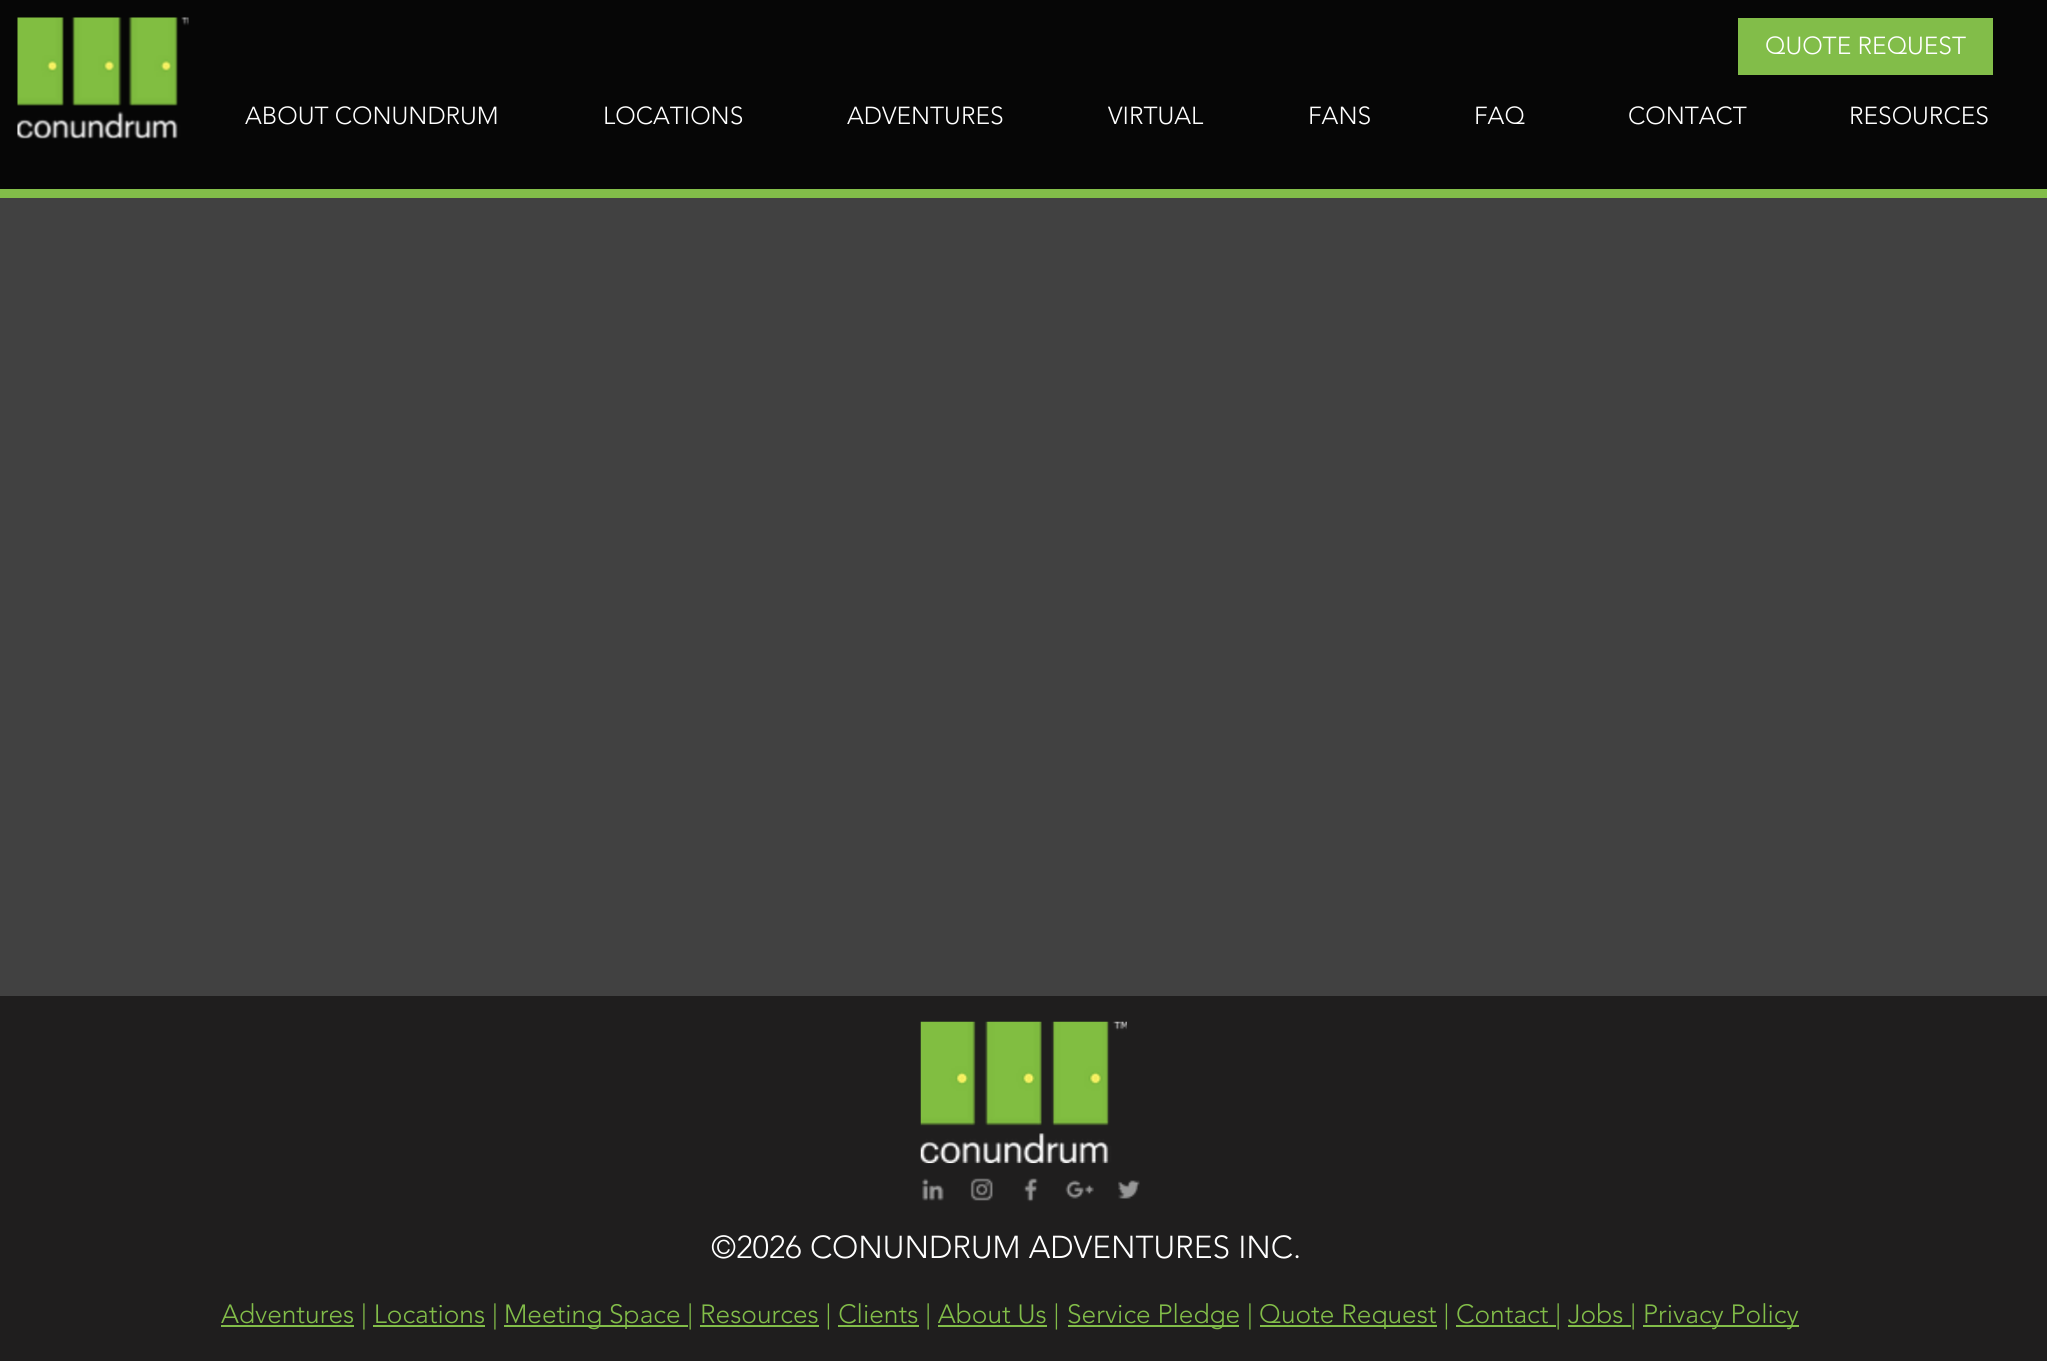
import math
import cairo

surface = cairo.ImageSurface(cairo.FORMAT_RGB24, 2047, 1361)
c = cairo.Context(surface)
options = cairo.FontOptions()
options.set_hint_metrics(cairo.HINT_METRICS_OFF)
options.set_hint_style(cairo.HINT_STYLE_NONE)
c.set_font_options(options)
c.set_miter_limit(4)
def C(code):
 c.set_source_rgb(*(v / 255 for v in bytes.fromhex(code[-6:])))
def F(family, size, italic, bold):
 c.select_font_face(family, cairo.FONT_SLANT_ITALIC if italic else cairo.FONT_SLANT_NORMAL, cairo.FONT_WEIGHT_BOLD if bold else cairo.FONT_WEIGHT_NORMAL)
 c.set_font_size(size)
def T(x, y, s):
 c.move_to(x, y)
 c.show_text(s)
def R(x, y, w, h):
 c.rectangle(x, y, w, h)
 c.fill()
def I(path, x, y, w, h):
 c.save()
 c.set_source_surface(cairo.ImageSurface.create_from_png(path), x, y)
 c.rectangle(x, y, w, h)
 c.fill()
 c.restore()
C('414141')
c.paint()
C('060606')
R(0,0,2047,189)
C('82bd49')
R(0,189,2047,9)
I('1.png',17,17,172,122)
R(1738,18,255,57)
F('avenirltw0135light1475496 Light',24.5,0,0)
C('ffffff')
T(1765,54,'QUOTE REQUEST')
T(245,124,'ABOUT CONUNDRUM')
T(603,124,'LOCATIONS')
T(847,124,'ADVENTURES')
T(1108,124,'VIRTUAL')
T(1308,124,'FANS')
T(1474,124,'FAQ')
T(1628,124,'CONTACT')
T(1849,124,'RESOURCES')
C('1f1e1e')
R(0,996,2047,365)
I('2.png',920,1021,207,143)
I('3.png',922,1178,22,23)
I('4.png',970,1178,23,23)
I('5.png',1023,1178,15,24)
I('6.png',1065,1180,29,19)
I('7.png',1118,1180,22,19)
F('avenirltw0135light1475496 Light',31.5,0,0)
C('ffffff')
T(711,1258,'©2026 CONUNDRUM ADVENTURES INC.')
C('82bd49')
R(221,1325,133,2)
F('avenirltw0135light1475496 Light',26.25,0,0)
T(221,1323,'Adventures | Locations |')
R(373,1325,112,2)
R(504,1325,184,2)
T(504,1323,'Meeting Space | Resources | Clients | About Us |')
R(700,1325,119,2)
R(838,1325,81,2)
R(938,1325,109,2)
R(1068,1325,171,2)
T(1067,1323,'Service Pledge |')
R(1260,1325,177,2)
T(1259,1323,'Quote Request | Contact | Jobs |')
R(1456,1325,100,2)
R(1568,1325,63,2)
R(1643,1325,156,2)
T(1643,1323,'Privacy Policy')
surface.write_to_png('o.png')
